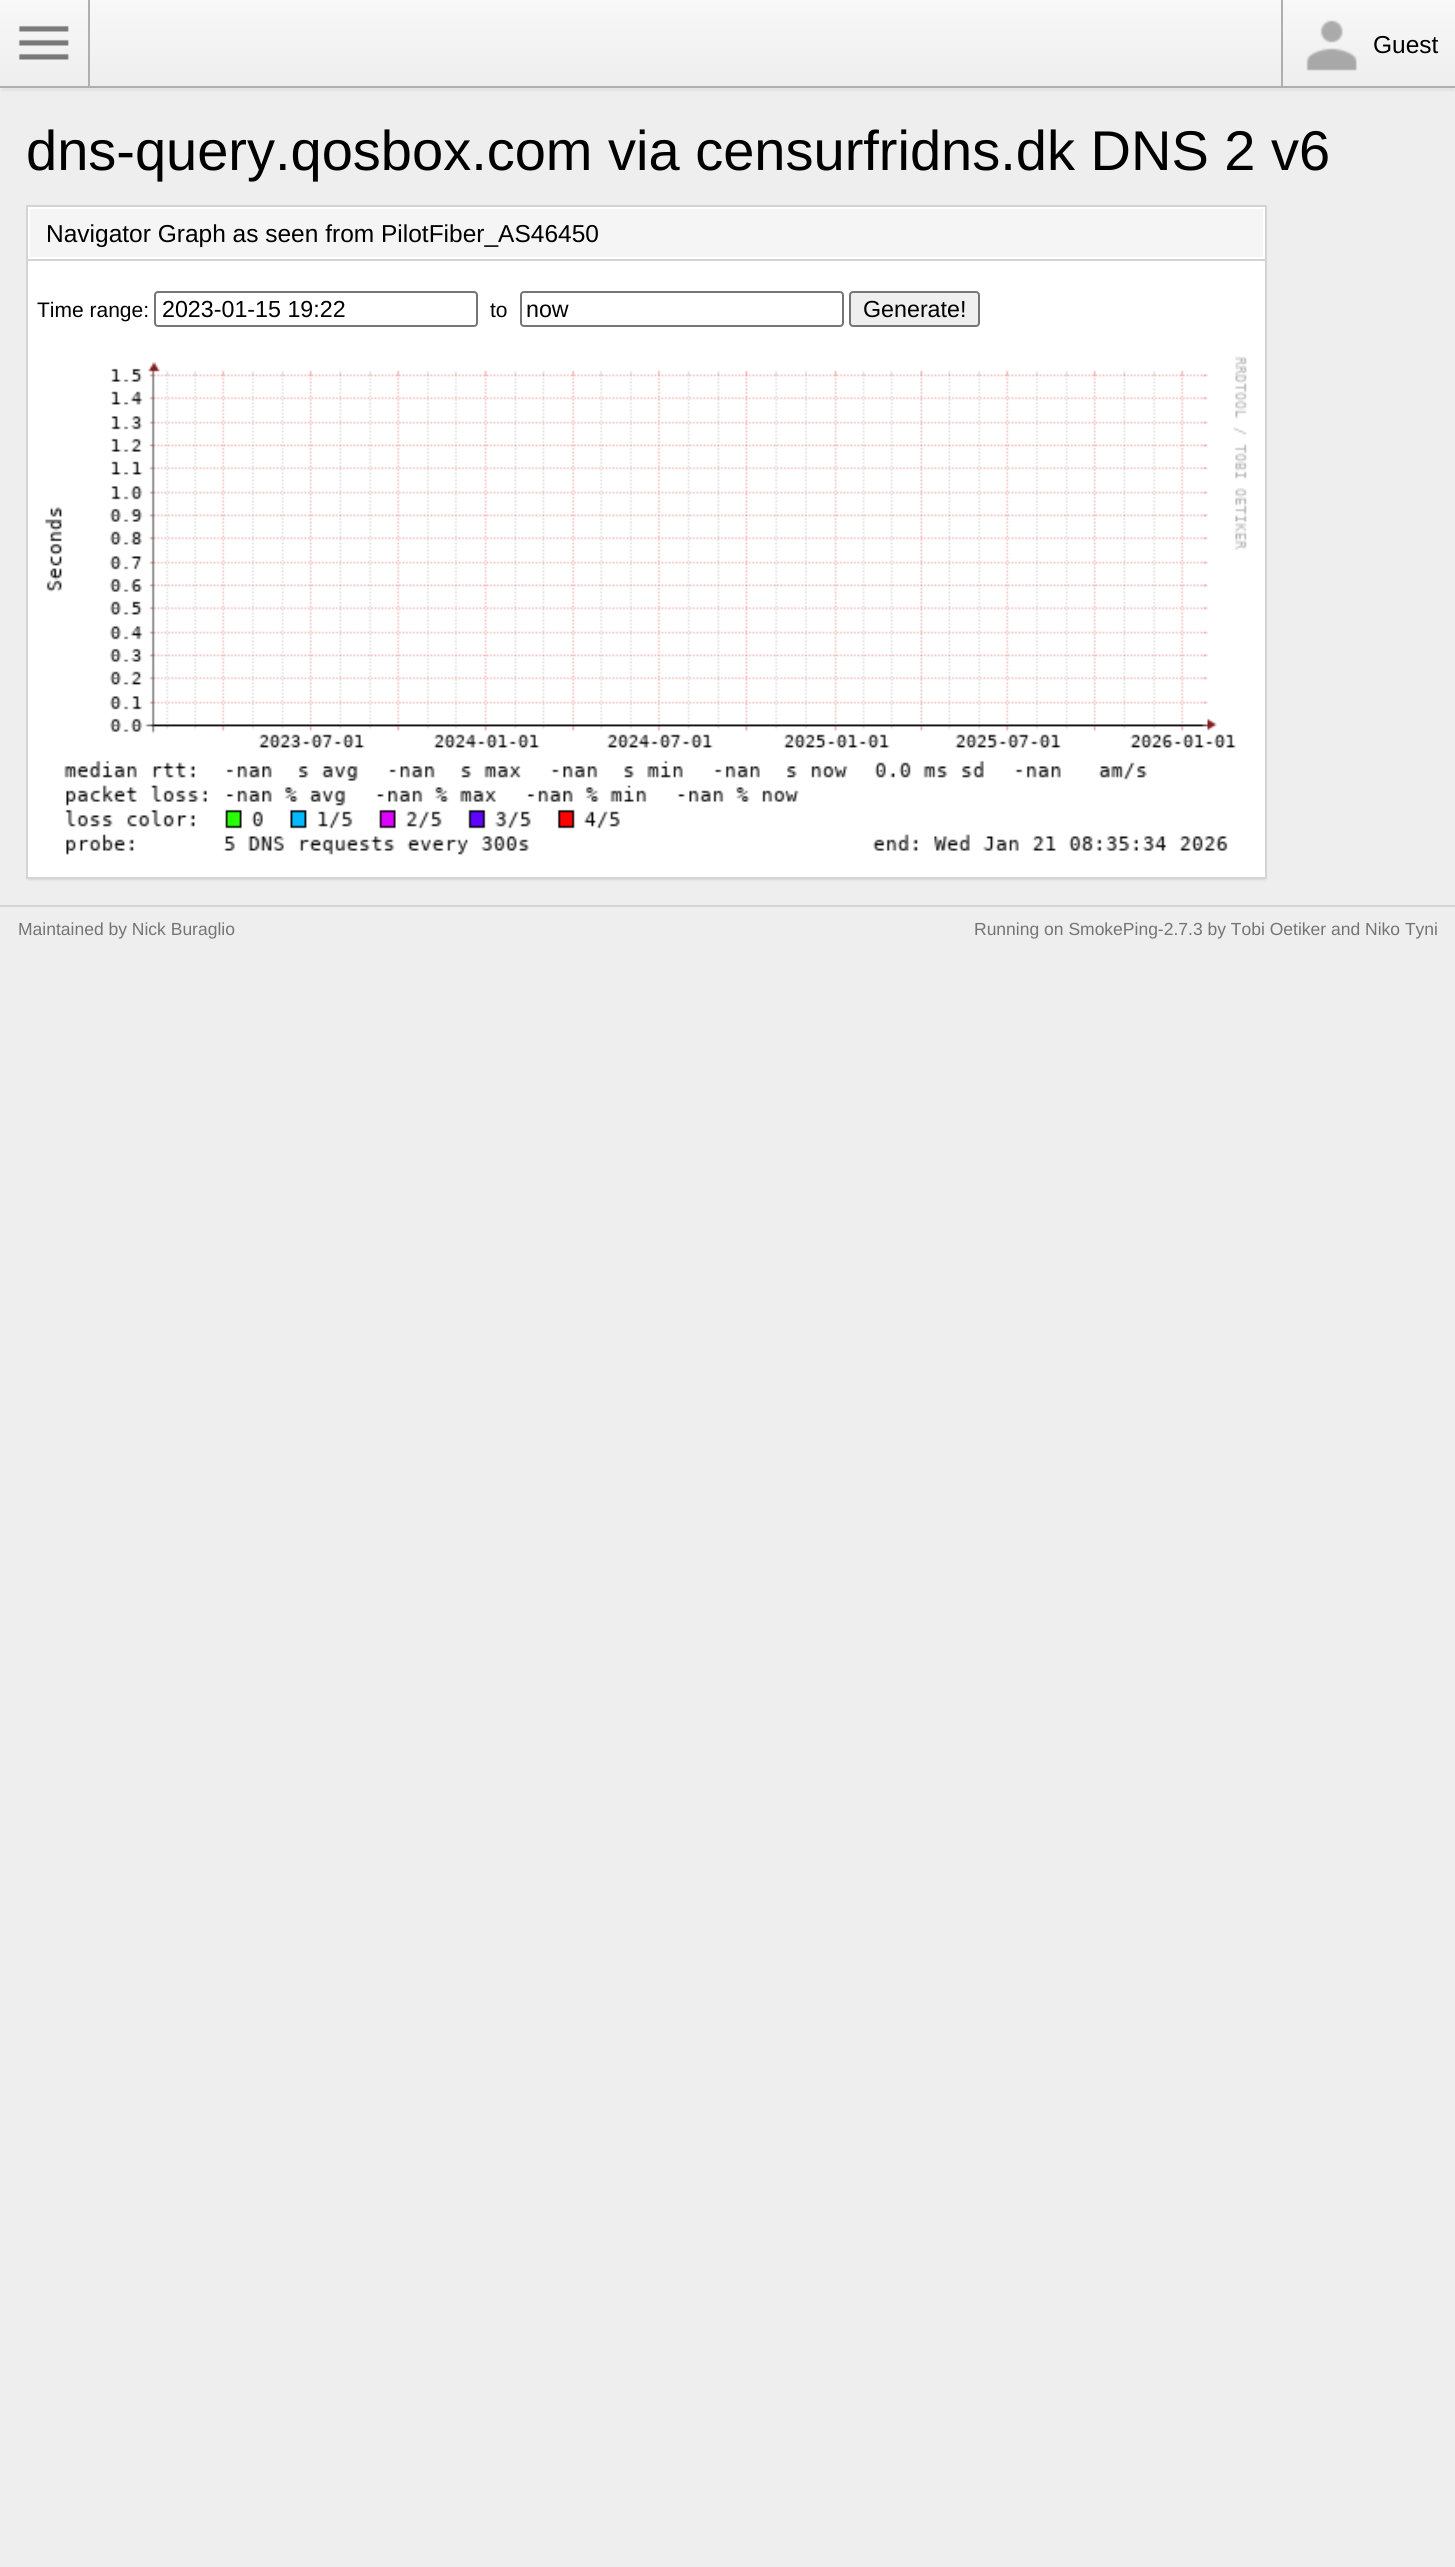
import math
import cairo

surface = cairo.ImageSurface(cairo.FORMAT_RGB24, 1455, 2567)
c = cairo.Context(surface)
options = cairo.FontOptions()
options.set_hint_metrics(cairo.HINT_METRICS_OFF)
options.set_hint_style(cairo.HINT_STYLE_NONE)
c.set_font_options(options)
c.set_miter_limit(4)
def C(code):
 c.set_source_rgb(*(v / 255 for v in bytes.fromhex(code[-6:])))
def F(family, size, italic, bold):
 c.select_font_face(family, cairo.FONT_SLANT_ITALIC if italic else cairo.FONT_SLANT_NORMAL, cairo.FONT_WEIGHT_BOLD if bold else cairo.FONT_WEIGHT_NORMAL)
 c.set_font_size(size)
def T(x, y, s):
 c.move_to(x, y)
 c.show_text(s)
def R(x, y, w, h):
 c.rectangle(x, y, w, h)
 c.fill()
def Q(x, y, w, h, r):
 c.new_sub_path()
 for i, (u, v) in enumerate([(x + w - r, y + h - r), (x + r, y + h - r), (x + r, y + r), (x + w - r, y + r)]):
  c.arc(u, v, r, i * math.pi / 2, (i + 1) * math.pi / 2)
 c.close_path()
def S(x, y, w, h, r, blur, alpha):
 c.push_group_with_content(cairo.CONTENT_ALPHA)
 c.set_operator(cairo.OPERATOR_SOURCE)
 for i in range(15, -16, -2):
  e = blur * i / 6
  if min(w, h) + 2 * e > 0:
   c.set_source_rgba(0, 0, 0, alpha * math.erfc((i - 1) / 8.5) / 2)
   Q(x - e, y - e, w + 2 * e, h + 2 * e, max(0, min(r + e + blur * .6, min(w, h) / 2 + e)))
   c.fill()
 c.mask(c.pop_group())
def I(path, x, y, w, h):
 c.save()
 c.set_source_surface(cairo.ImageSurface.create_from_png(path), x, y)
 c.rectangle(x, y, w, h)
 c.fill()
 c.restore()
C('eeeeee')
c.paint()
C('000000')
S(2,7,1452,84,0,1,.05)
gradient = cairo.LinearGradient(728,0,728,86)
gradient.add_color_stop_rgba(0,0.973,0.973,0.973,1)
gradient.add_color_stop_rgba(1,0.933,0.933,0.933,1)
c.set_source(gradient)
R(0,0,1455,86)
C('afafaf')
R(0,86,1455,2)
R(88,0,2,88)
I('1.png',18,25,51,35)
R(1281,0,2,88)
I('2.png',1306,20,51,51)
F('Liberation Sans',24.5,0,0)
C('000000')
T(1373,53,'Guest')
F('Liberation Sans',56,0,0)
T(26,170,'dns-query.qosbox.com via censurfridns.dk DNS 2 v6')
C('000000')
S(28,210,1237,670,0,1,.1)
C('ffffff')
R(28,261,1237,616)
c.rectangle(27,206,1239,672)
C('d4d4d4')
c.stroke()
C('f5f5f5')
c.rectangle(29,208,1235,50)
c.fill_preserve()
C('ffffff')
c.stroke()
C('d4d4d4')
R(28,259,1237,2)
F('Liberation Sans',24.5,0,0)
C('000000')
T(46,242,'Navigator Graph as seen from PilotFiber_AS46450')
F('Liberation Sans',21,0,0)
T(37,317,'Time range:')
Q(155,292,322,34,3)
C('767676')
c.stroke()
F('Liberation Sans',23.25,0,0)
C('000000')
T(162,317,'2023-01-15 19:22')
F('Liberation Sans',21,0,0)
T(490,317,'to')
Q(521,292,322,34,3)
C('767676')
c.stroke()
F('Liberation Sans',23.25,0,0)
C('000000')
T(526,317,'now')
C('efefef')
Q(850,292,129,34,3)
c.fill_preserve()
C('767676')
c.stroke()
C('000000')
T(863,317,'Generate!')
I('3.png',45,356,1202,499)
C('d4d4d4')
R(0,905,1455,2)
F('Liberation Sans',17.5,0,0)
C('747474')
T(18,935,'Maintained by Nick Buraglio')
T(974,935,'Running on SmokePing-2.7.3 by Tobi Oetiker and Niko Tyni')
surface.write_to_png('o.png')
